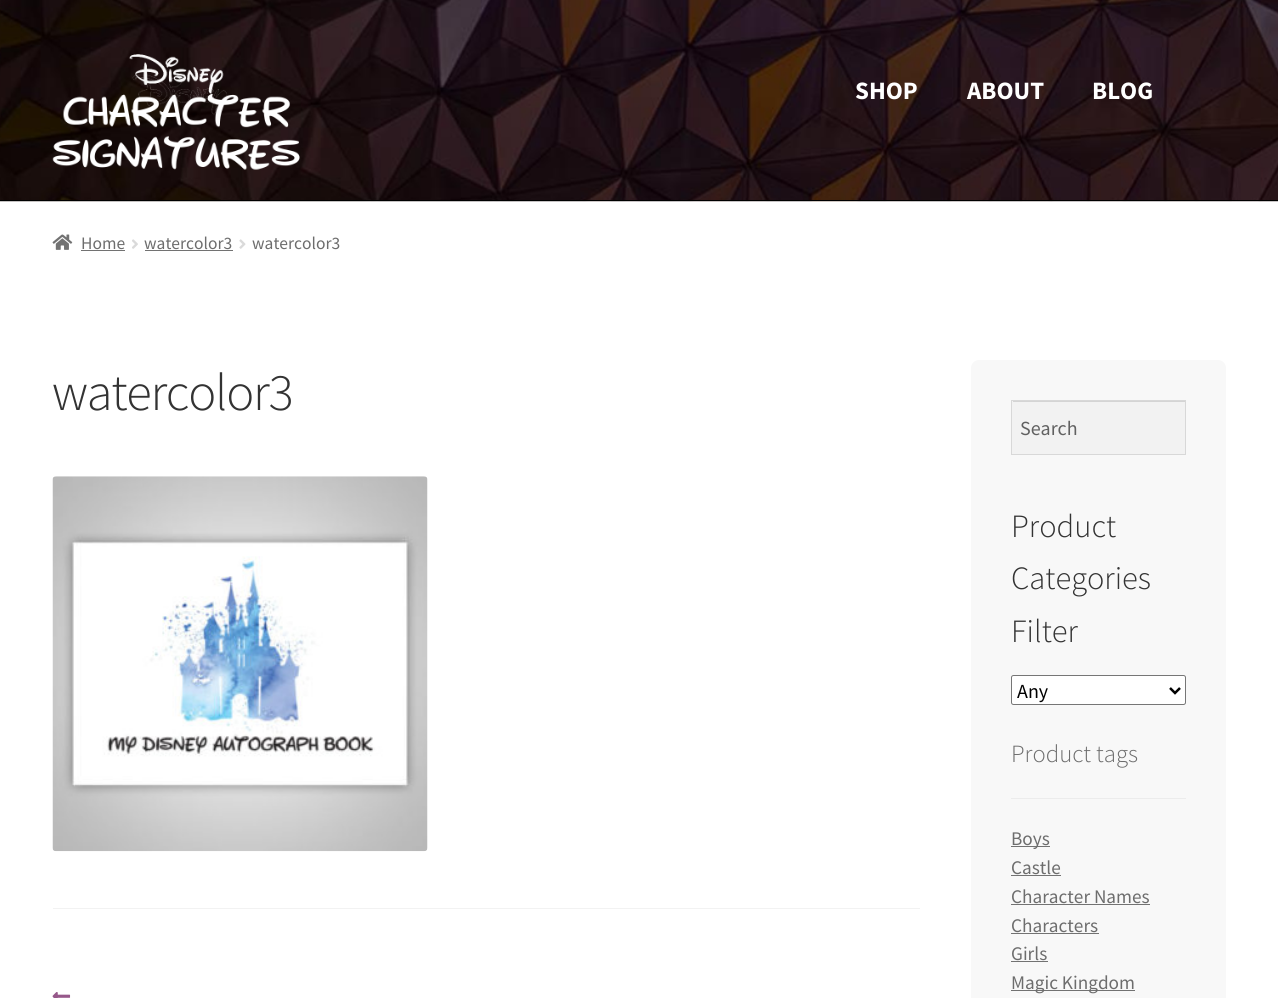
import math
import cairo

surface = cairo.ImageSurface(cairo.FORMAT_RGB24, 1278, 998)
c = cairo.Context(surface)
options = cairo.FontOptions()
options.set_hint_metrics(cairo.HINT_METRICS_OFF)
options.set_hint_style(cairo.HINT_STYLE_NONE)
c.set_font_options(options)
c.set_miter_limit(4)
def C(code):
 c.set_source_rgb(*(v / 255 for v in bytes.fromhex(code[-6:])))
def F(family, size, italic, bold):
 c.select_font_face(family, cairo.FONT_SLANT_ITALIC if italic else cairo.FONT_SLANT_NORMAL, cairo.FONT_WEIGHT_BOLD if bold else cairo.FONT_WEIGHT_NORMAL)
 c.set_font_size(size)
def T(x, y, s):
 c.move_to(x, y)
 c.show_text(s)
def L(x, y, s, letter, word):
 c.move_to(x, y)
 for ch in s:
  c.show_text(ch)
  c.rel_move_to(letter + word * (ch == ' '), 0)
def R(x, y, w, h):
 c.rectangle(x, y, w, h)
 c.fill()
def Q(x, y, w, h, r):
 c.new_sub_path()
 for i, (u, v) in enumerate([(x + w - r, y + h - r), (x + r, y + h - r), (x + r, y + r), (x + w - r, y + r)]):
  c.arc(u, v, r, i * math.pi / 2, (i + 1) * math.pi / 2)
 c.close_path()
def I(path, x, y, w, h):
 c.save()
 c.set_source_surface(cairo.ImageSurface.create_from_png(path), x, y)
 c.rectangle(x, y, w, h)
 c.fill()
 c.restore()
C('ffffff')
c.paint()
I('1.png',0,0,1278,202)
C('000000')
R(0,200,1278,1)
I('2.png',52,54,248,116)
F('Source Sans Pro',25,0,1)
C('ffffff')
T(855,99,'SHOP')
T(967,99,'ABOUT')
T(1092,99,'BLOG')
I('3.png',52,234,21,16)
F('Source Sans Pro',17.5,0,0)
C('6d6d6d')
T(81,249,'Home')
C('727272')
R(81,250,44,1)
I('4.png',132,239,6,10)
C('6d6d6d')
T(144,249,'watercolor3')
C('727272')
R(145,250,88,1)
I('5.png',239,239,7,10)
C('6d6d6d')
T(252,249,'watercolor3')
F('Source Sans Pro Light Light',52.5,0,0)
C('333333')
L(52,410,'watercolor3',-1.25,0)
I('6.png',52,476,376,376)
C('f2f2f2')
R(53,908,867,1)
I('7.png',52,992,19,6)
C('f8f8f8')
Q(971,360,255,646,8)
c.fill()
C('f2f2f2')
R(1012,401,173,53)
C('d4d4d4')
R(1013,401,172,1)
c.rectangle(1011.5,400.5,174,54)
C('d8d8d8')
c.set_line_width(1)
c.stroke()
F('Source Sans Pro',20,0,0)
C('616161')
T(1020,435,'Search')
F('Source Sans Pro Light Light',32.5,0,0)
C('333333')
T(1011,537,'Product')
T(1011,589,'Categories')
T(1011,642,'Filter')
C('ffffff')
Q(1011.5,675.5,174,29,2)
c.fill_preserve()
C('767676')
c.stroke()
c.new_path()
c.move_to(1170,688)
c.line_to(1175,693)
c.line_to(1180,688)
C('000000')
c.set_line_width(2.5)
c.stroke()
F('Source Sans Pro',20,0,0)
T(1017,698,'Any')
C('ececec')
R(1011,798,175,1)
F('Source Sans Pro Light Light',24.75,0,0)
C('6d6d6d')
T(1011,762,'Product tags')
C('727272')
R(1011,846,39,1)
F('Source Sans Pro',19.25,0,0)
C('6d6d6d')
T(1011,845,'Boys')
T(1011,874,'Castle')
C('727272')
R(1011,875,50,1)
C('6d6d6d')
T(1011,903,'Character Names')
C('727272')
R(1011,904,139,1)
C('6d6d6d')
T(1011,932,'Characters')
C('727272')
R(1011,933,88,1)
C('6d6d6d')
T(1011,960,'Girls')
C('727272')
R(1011,961,37,1)
R(1011,990,124,1)
C('6d6d6d')
T(1011,989,'Magic Kingdom')
surface.write_to_png('o.png')
